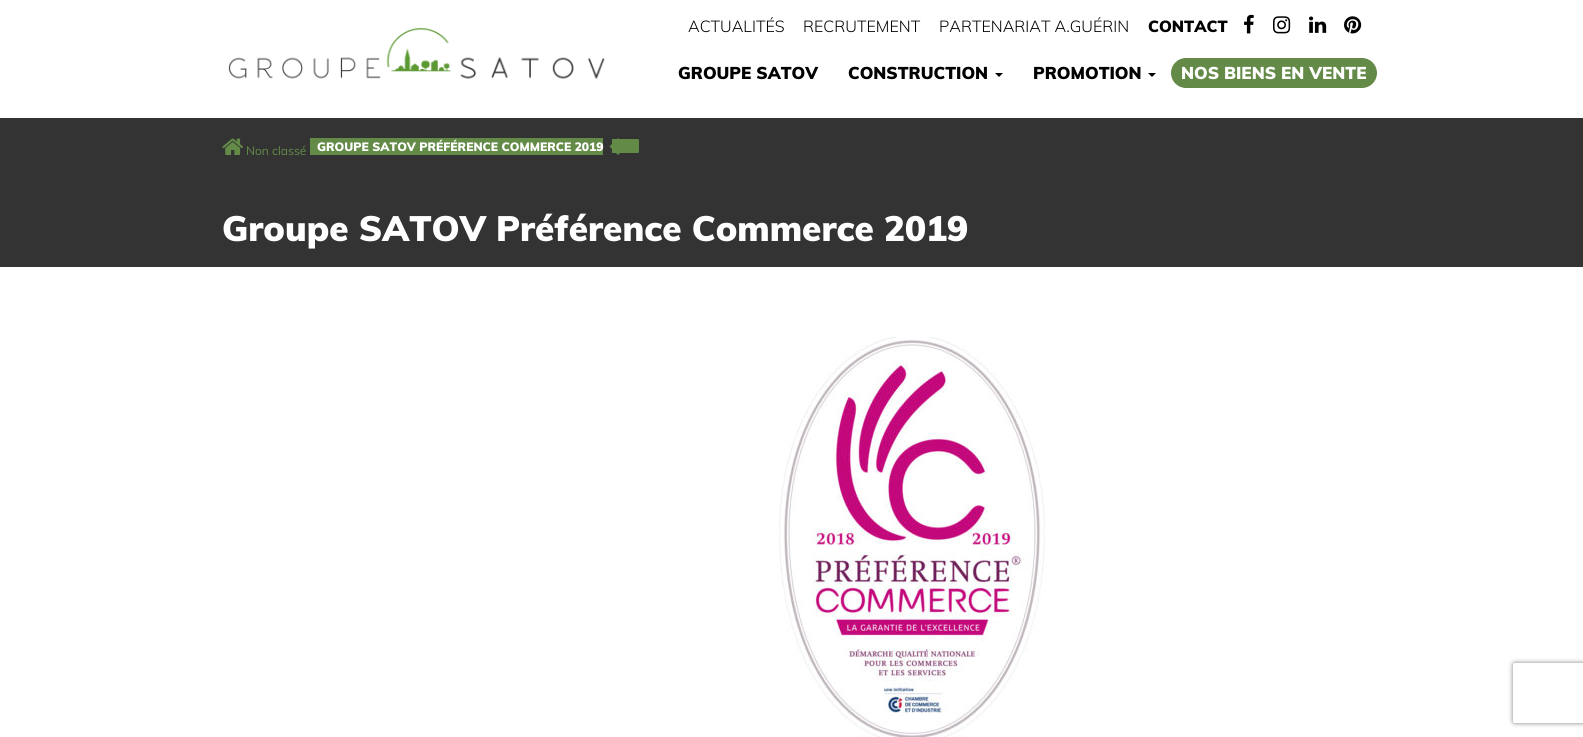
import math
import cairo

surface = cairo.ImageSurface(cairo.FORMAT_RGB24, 1583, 737)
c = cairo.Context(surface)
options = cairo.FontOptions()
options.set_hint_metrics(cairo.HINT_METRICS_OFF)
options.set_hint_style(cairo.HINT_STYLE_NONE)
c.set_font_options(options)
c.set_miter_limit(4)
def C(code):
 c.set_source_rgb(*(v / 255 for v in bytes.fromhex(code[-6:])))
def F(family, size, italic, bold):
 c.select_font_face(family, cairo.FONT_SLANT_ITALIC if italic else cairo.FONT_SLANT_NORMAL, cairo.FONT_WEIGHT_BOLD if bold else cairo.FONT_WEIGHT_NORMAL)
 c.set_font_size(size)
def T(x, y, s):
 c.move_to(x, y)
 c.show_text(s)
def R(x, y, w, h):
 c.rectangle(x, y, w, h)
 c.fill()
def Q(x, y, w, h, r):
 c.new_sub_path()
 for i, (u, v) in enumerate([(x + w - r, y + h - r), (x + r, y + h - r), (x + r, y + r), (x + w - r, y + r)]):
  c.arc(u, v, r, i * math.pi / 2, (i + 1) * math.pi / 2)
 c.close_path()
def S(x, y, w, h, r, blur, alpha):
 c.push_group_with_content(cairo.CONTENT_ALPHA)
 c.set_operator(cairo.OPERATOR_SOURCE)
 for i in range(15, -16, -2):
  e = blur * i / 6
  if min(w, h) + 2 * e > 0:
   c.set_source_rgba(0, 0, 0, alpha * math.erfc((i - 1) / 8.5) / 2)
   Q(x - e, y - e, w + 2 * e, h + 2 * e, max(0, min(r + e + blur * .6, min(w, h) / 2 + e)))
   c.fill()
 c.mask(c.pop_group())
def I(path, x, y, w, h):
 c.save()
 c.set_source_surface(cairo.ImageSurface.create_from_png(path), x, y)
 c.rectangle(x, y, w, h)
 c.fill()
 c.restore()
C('ffffff')
c.paint()
F('Muli Light',16,0,0)
C('000000')
T(688,32,'ACTUALITÉS')
T(803,32,'RECRUTEMENT')
T(939,32,'PARTENARIAT A.GUÉRIN')
F('Muli Black',16,0,0)
T(1148,32,'CONTACT')
I('1.png',1244,14,10,20)
I('2.png',1273,16,18,18)
I('3.png',1309,16,18,17)
I('4.png',1344,16,18,18)
I('5.png',228,28,377,51)
F('Muli Black',17,0,0)
T(678,79,'GROUPE SATOV')
T(848,79,'CONSTRUCTION')
c.new_path()
c.move_to(995,73)
c.line_to(1003,73)
c.line_to(999,77)
c.close_path()
c.fill()
T(1033,79,'PROMOTION')
c.new_path()
c.move_to(1148,73)
c.line_to(1156,73)
c.line_to(1152,77)
c.close_path()
c.fill()
C('638a47')
Q(1171,58,206,30,15)
c.fill()
C('ffffff')
T(1181,79,'NOS BIENS EN VENTE')
C('333333')
R(0,118,1583,149)
I('6.png',222,138,21,17)
F('Muli',12,0,0)
C('638a47')
T(246,155,'Non classé')
R(310,138,293,17)
c.new_path()
c.move_to(612,139)
c.line_to(638,139)
c.curve_to(638.5,139,639,139.5,639,140)
c.line_to(639,152)
c.curve_to(639,152.5,638.5,153,638,153)
c.line_to(612,153)
c.close_path()
c.fill()
F('Muli Black',12,0,0)
C('ffffff')
T(317,151,'GROUPE SATOV PRÉFÉRENCE COMMERCE 2019')
C('638a47')
c.new_path()
c.move_to(618,138)
c.line_to(626.5,146.5)
c.line_to(618,155)
c.line_to(609.5,146.5)
c.close_path()
c.fill()
F('Muli Black',35,0,0)
C('ffffff')
T(222,241,'Groupe SATOV Préférence Commerce 2019')
I('7.png',779,337,266,400)
c.save()
c.set_fill_rule(cairo.FILL_RULE_EVEN_ODD)
c.new_path()
c.move_to(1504,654)
c.line_to(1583,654)
c.line_to(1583,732)
c.line_to(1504,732)
c.close_path()
c.move_to(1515,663)
c.line_to(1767,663)
c.curve_to(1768,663,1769,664,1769,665)
c.line_to(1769,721)
c.curve_to(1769,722,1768,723,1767,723)
c.line_to(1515,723)
c.curve_to(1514,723,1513,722,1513,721)
c.line_to(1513,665)
c.curve_to(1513,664,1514,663,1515,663)
c.close_path()
c.clip()
C('808080')
S(1513,663,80,60,2,2.5,1)
c.restore()
surface.write_to_png('o.png')
